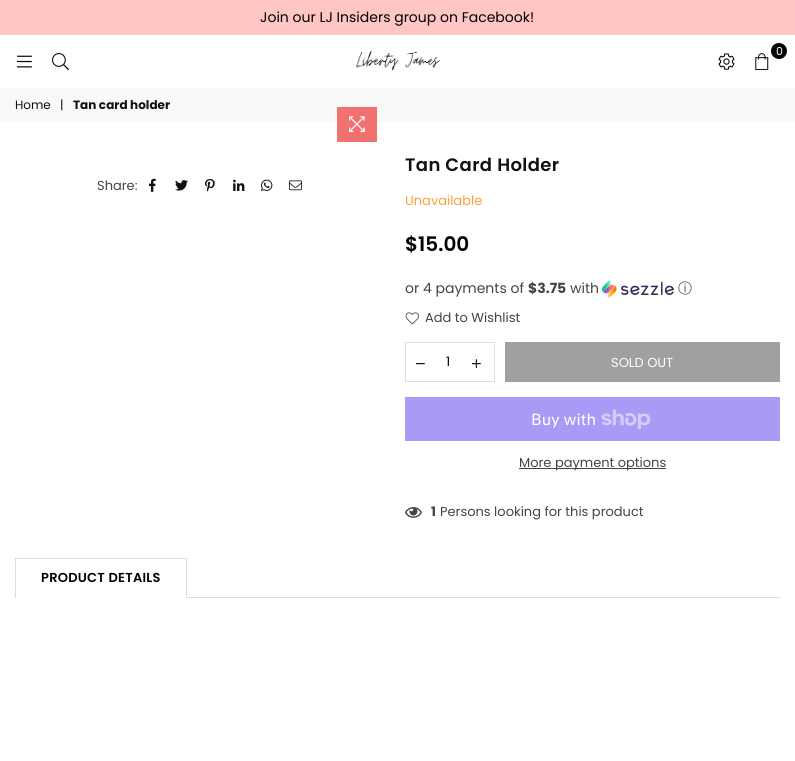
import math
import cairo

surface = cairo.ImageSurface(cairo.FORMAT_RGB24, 795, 761)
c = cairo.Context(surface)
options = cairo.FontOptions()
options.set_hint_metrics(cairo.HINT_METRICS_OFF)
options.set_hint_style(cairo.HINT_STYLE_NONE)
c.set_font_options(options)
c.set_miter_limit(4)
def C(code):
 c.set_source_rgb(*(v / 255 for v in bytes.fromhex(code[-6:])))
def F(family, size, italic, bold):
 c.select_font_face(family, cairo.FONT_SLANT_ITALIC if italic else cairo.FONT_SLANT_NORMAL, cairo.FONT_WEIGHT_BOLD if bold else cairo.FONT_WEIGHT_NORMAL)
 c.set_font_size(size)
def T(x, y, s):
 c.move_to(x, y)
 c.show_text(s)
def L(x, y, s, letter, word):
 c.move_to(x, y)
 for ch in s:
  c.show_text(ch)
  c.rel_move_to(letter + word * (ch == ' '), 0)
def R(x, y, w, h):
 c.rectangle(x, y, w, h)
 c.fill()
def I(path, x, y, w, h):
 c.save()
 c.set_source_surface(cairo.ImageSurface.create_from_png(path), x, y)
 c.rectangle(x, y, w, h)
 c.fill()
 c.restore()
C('ffffff')
c.paint()
C('ffc6c3')
R(0,0,795,35)
F('Poppins',14,0,0)
C('000000')
T(260,22,'Join our LJ Insiders group on Facebook!')
I('1.png',17,55,15,13)
I('2.png',52,53,17,17)
I('3.png',355,50,86,20)
C('030505')
c.arc(779,51,8,0,2 * math.pi)
c.fill()
F('Poppins',11,0,0)
C('ffffff')
T(776,55,'0')
I('4.png',755,53,14,17)
I('5.png',718,53,17,17)
C('f9f9f9')
R(0,88,795,34)
F('Poppins',12,0,0)
C('111111')
T(15,109,'Home')
T(60,109,'|')
F('Poppins',12,0,1)
T(73,109,'Tan card holder')
C('f17171')
R(337,107,40,35)
I('6.png',349,116,16,16)
F('Poppins',13,0,0)
C('444444')
T(97,190,'Share:')
I('7.png',149,178,7,14)
I('8.png',175,180,13,11)
I('9.png',205,179,10,13)
I('10.png',233,179,12,12)
I('11.png',261,179,12,12)
I('12.png',289,180,13,11)
F('Poppins SemiBold',18,0,0)
C('111111')
L(405,171,'Tan Card Holder',.4,0)
F('Poppins',13,0,0)
C('ff9f3b')
T(405,205,'Unavailable')
F('Poppins SemiBold',20,0,0)
C('000000')
T(405,251,'$15.00')
F('Poppins',14,0,0)
C('444444')
T(405,293,'or 4 payments of')
F('Poppins',14,0,1)
T(528,293,'$3.75')
F('Poppins',14,0,0)
T(570,293,'with')
I('13.png',602,280,72,18)
F('WenQuanYi Zen Hei Medium',14,0,0)
T(678,293,'ⓘ')
I('14.png',405,312,14,13)
F('Poppins',13,0,0)
T(425,322,'Add to Wishlist')
c.rectangle(405.5,342.5,89,39)
C('dddddd')
c.set_line_width(1)
c.stroke()
I('15.png',416,363,9,2)
C('000000')
T(446,366,'1')
I('16.png',472,359,9,9)
C('a0a0a0')
R(505,342,275,40)
C('ffffff')
T(611,367,'SOLD OUT')
C('aa99f5')
R(405,397,375,44)
F('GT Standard',16,0,0)
C('ffffff')
T(531,425,'Buy with')
I('17.png',601,409,50,20)
C('444444')
R(519,468,147,1)
F('Poppins',13,0,0)
T(519,467,'More payment options')
I('18.png',405,507,17,11)
F('Poppins',13,0,1)
T(431,516,'1')
F('Poppins',13,0,0)
T(440,516,'Persons looking for this product')
C('dddddd')
R(15,597,765,1)
R(15,558,172,1)
R(186,558,1,39)
R(15,558,1,39)
F('Poppins SemiBold',13,0,0)
C('000000')
L(41,582,'PRODUCT DETAILS',.25,0)
C('ffffff')
R(16,597,170,1)
surface.write_to_png('o.png')
